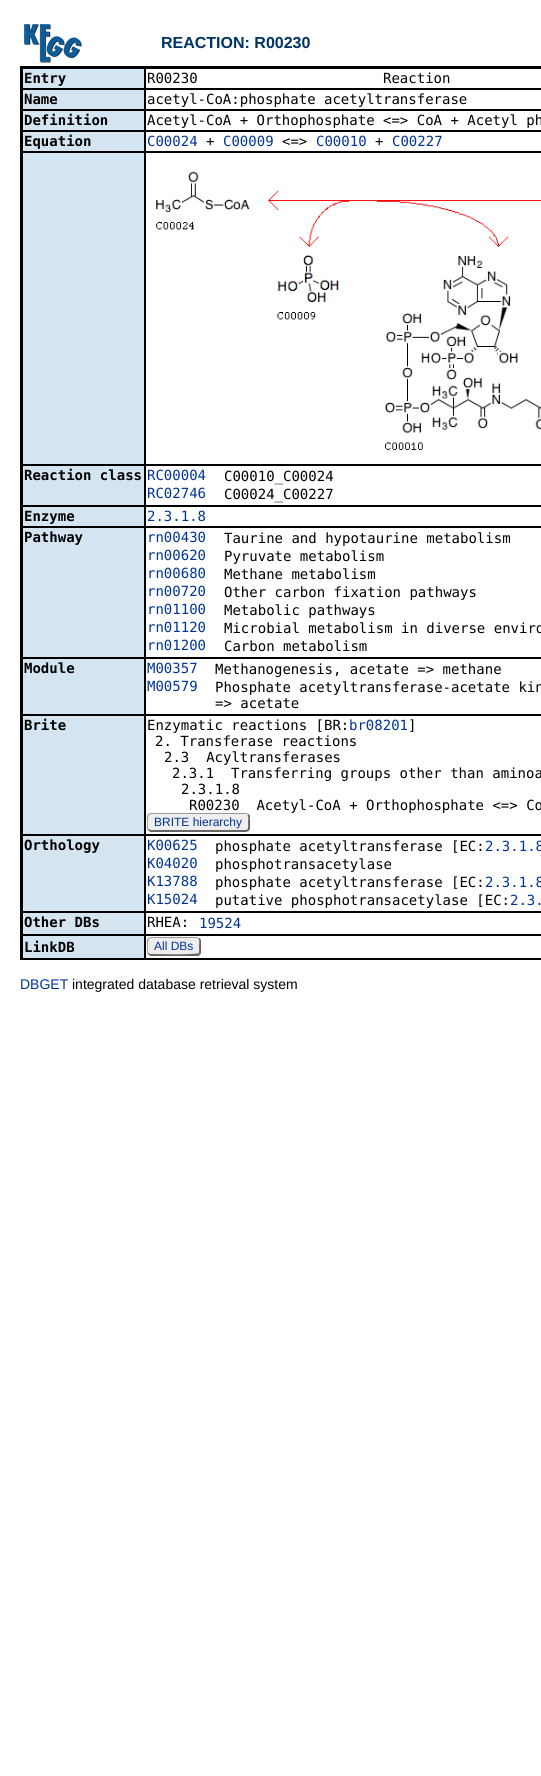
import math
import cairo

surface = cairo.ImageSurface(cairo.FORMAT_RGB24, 541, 1776)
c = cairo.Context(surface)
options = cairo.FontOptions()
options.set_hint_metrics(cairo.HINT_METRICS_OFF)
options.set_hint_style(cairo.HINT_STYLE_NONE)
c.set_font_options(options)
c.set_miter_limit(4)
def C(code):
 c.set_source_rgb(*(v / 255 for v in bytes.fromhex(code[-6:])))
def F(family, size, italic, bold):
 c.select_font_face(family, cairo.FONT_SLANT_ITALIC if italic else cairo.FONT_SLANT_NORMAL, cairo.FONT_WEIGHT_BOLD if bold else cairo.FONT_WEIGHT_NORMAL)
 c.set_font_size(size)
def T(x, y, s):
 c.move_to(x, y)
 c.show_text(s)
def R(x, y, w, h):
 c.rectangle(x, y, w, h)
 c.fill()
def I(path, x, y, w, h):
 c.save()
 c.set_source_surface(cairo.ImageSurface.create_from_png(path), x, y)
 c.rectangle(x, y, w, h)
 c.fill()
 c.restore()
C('ffffff')
c.paint()
I('1.png',24,24,58,39)
F('Liberation Sans',16,0,1)
C('003366')
T(161,48,'REACTION: R00230')
C('000000')
R(20,66,521,894)
C('d4e4f0')
R(23,69,121,19)
F('DejaVu Sans Mono',14,0,1)
C('000000')
T(24,83,'Entry')
C('ffffff')
R(146,69,395,19)
F('DejaVu Sans Mono',14,0,0)
C('000000')
T(147,83,'R00230                      Reaction')
C('d4e4f0')
R(23,90,121,19)
F('DejaVu Sans Mono',14,0,1)
C('000000')
T(24,104,'Name')
C('ffffff')
R(146,90,395,19)
F('DejaVu Sans Mono',14,0,0)
C('000000')
T(147,104,'acetyl-CoA:phosphate acetyltransferase')
C('d4e4f0')
R(23,111,121,19)
F('DejaVu Sans Mono',14,0,1)
C('000000')
T(24,125,'Definition')
C('ffffff')
R(146,111,395,19)
F('DejaVu Sans Mono',14,0,0)
C('000000')
T(147,125,'Acetyl-CoA + Orthophosphate <=> CoA + Acetyl ph')
C('d4e4f0')
R(23,132,121,19)
F('DejaVu Sans Mono',14,0,1)
C('000000')
T(24,146,'Equation')
C('ffffff')
R(146,132,395,19)
F('DejaVu Sans Mono',14,0,0)
C('003399')
T(147,146,'C00024')
C('000000')
T(206,146,'+')
C('003399')
T(223,146,'C00009')
C('000000')
T(282,146,'<=>')
C('003399')
T(316,146,'C00010')
C('000000')
T(375,146,'+')
C('003399')
T(392,146,'C00227')
C('d4e4f0')
R(23,153,121,311)
C('ffffff')
R(146,153,395,311)
I('2.png',156,171,385,279)
C('d4e4f0')
R(23,466,121,39)
F('DejaVu Sans Mono',14,0,1)
C('000000')
T(24,480,'Reaction class')
C('ffffff')
R(146,466,395,39)
F('DejaVu Sans Mono',14,0,0)
C('003399')
T(147,480,'RC00004')
C('000000')
T(224,481,'C00010_C00024')
C('003399')
T(147,498,'RC02746')
C('000000')
T(224,499,'C00024_C00227')
C('d4e4f0')
R(23,507,121,19)
F('DejaVu Sans Mono',14,0,1)
C('000000')
T(24,521,'Enzyme')
C('ffffff')
R(146,507,395,19)
F('DejaVu Sans Mono',14,0,0)
C('003399')
T(147,521,'2.3.1.8')
C('d4e4f0')
R(23,528,121,129)
F('DejaVu Sans Mono',14,0,1)
C('000000')
T(24,542,'Pathway')
C('ffffff')
R(146,528,395,129)
F('DejaVu Sans Mono',14,0,0)
C('003399')
T(147,542,'rn00430')
C('000000')
T(224,543,'Taurine and hypotaurine metabolism')
C('003399')
T(147,560,'rn00620')
C('000000')
T(224,561,'Pyruvate metabolism')
C('003399')
T(147,578,'rn00680')
C('000000')
T(224,579,'Methane metabolism')
C('003399')
T(147,596,'rn00720')
C('000000')
T(224,597,'Other carbon fixation pathways')
C('003399')
T(147,614,'rn01100')
C('000000')
T(224,615,'Metabolic pathways')
C('003399')
T(147,632,'rn01120')
C('000000')
T(224,633,'Microbial metabolism in diverse enviro')
C('003399')
T(147,650,'rn01200')
C('000000')
T(224,651,'Carbon metabolism')
C('d4e4f0')
R(23,659,121,55)
F('DejaVu Sans Mono',14,0,1)
C('000000')
T(24,673,'Module')
C('ffffff')
R(146,659,395,55)
F('DejaVu Sans Mono',14,0,0)
C('003399')
T(147,673,'M00357')
C('000000')
T(215,674,'Methanogenesis, acetate => methane')
C('003399')
T(147,691,'M00579')
C('000000')
T(215,692,'Phosphate acetyltransferase-acetate kin')
T(215,708,'=> acetate')
C('d4e4f0')
R(23,716,121,118)
F('DejaVu Sans Mono',14,0,1)
C('000000')
T(24,730,'Brite')
C('ffffff')
R(146,716,395,118)
F('DejaVu Sans Mono',14,0,0)
C('000000')
T(147,730,'Enzymatic reactions [BR:')
C('003399')
T(349,730,'br08201')
C('000000')
T(408,730,']')
T(155,746,'2. Transferase reactions')
T(164,762,'2.3  Acyltransferases')
T(172,778,'2.3.1  Transferring groups other than aminoa')
T(181,794,'2.3.1.8')
T(189,810,'R00230  Acetyl-CoA + Orthophosphate <=> Co')
C('eeeeee')
c.new_path()
c.move_to(151,814)
c.line_to(246,814)
c.curve_to(247,814,248,815,248,817)
c.line_to(248,828)
c.curve_to(248,829,247,830,246,830)
c.line_to(151,830)
c.curve_to(149,830,148,829,148,828)
c.line_to(148,817)
c.curve_to(148,815,149,814,151,814)
c.close_path()
c.fill()
C('999999')
c.new_path()
c.move_to(151,813)
c.line_to(148,814)
c.line_to(149,815)
c.line_to(151,814)
c.line_to(167,814)
c.curve_to(175,814,246,814,247,814)
c.line_to(248,814)
c.line_to(246,813)
c.close_path()
c.fill()
C('666666')
c.new_path()
c.move_to(250,828)
c.line_to(250,817)
c.curve_to(250,816,249.5,814.5,248.5,814)
c.line_to(247,814.5)
c.curve_to(249,816,248,820.5,248,822.5)
c.curve_to(248,824,248.5,828,247.5,829.5)
c.line_to(249,831)
c.curve_to(249.5,830,250,829,250,828)
c.close_path()
c.fill()
c.new_path()
c.move_to(151,832)
c.line_to(246,832)
c.line_to(249,831)
c.line_to(247,829)
c.line_to(246,830)
c.line_to(151,830)
c.line_to(148,829)
c.line_to(148,830)
c.curve_to(149,831,150,832,151,832)
c.close_path()
c.fill()
C('999999')
c.new_path()
c.move_to(147,817)
c.line_to(147,828)
c.curve_to(147,829,147.5,829.5,148,830.5)
c.line_to(148.5,829)
c.curve_to(147.5,828,147.5,816,149,815)
c.line_to(148,814)
c.curve_to(147.5,815,147,816,147,817)
c.close_path()
c.fill()
F('Liberation Sans',12,0,0)
C('003399')
T(154,826,'BRITE hierarchy')
C('d4e4f0')
R(23,836,121,75)
F('DejaVu Sans Mono',14,0,1)
C('000000')
T(24,850,'Orthology')
C('ffffff')
R(146,836,395,75)
F('DejaVu Sans Mono',14,0,0)
C('003399')
T(147,850,'K00625')
C('000000')
T(215,851,'phosphate acetyltransferase [EC:')
C('003399')
T(485,851,'2.3.1.8')
T(147,868,'K04020')
C('000000')
T(215,869,'phosphotransacetylase')
C('003399')
T(147,886,'K13788')
C('000000')
T(215,887,'phosphate acetyltransferase [EC:')
C('003399')
T(485,887,'2.3.1.8')
T(147,904,'K15024')
C('000000')
T(215,905,'putative phosphotransacetylase [EC:')
C('003399')
T(510,905,'2.3.')
C('d4e4f0')
R(23,913,121,21)
F('DejaVu Sans Mono',14,0,1)
C('000000')
T(24,927,'Other DBs')
C('ffffff')
R(146,913,395,21)
F('DejaVu Sans Mono',14,0,0)
C('000000')
T(147,927,'RHEA:')
C('003399')
T(199,928,'19524')
C('d4e4f0')
R(23,936,121,22)
F('DejaVu Sans Mono',14,0,1)
C('000000')
T(24,952,'LinkDB')
C('ffffff')
R(146,936,395,22)
C('eeeeee')
c.new_path()
c.move_to(151,938)
c.line_to(197,938)
c.curve_to(198,938,199,939,199,941)
c.line_to(199,952)
c.curve_to(199,953,198,954,197,954)
c.line_to(151,954)
c.curve_to(149,954,148,953,148,952)
c.line_to(148,941)
c.curve_to(148,939,149,938,151,938)
c.close_path()
c.fill()
C('999999')
c.new_path()
c.move_to(151,937)
c.line_to(148,938)
c.line_to(149,939)
c.line_to(151,938)
c.curve_to(155,938,197,938,198,938)
c.line_to(199,938)
c.line_to(197,937)
c.close_path()
c.fill()
C('666666')
c.new_path()
c.move_to(201,952)
c.line_to(201,941)
c.curve_to(201,940,200.5,938.5,199.5,938)
c.line_to(198,938.5)
c.curve_to(200,940,199,944.5,199,946.5)
c.curve_to(199,948,199.5,952,198.5,953.5)
c.line_to(200,955)
c.curve_to(200.5,954,201,953,201,952)
c.close_path()
c.fill()
c.new_path()
c.move_to(151,956)
c.line_to(197,956)
c.curve_to(198,956,199,956,200,955)
c.line_to(198,953)
c.curve_to(197,955,156,954,151,954)
c.line_to(148,953)
c.line_to(148,954)
c.curve_to(149,955,150,956,151,956)
c.close_path()
c.fill()
C('999999')
c.new_path()
c.move_to(147,941)
c.line_to(147,952)
c.curve_to(147,953,147.5,953.5,148,954.5)
c.line_to(148.5,953)
c.curve_to(147.5,952,147.5,940,149,939)
c.line_to(148,938)
c.curve_to(147.5,939,147,940,147,941)
c.close_path()
c.fill()
F('Liberation Sans',12,0,0)
C('003399')
T(154,950,'All DBs')
F('Liberation Sans',14,0,0)
T(20,989,'DBGET')
C('000000')
T(72,989,'integrated database retrieval system')
surface.write_to_png('o.png')
